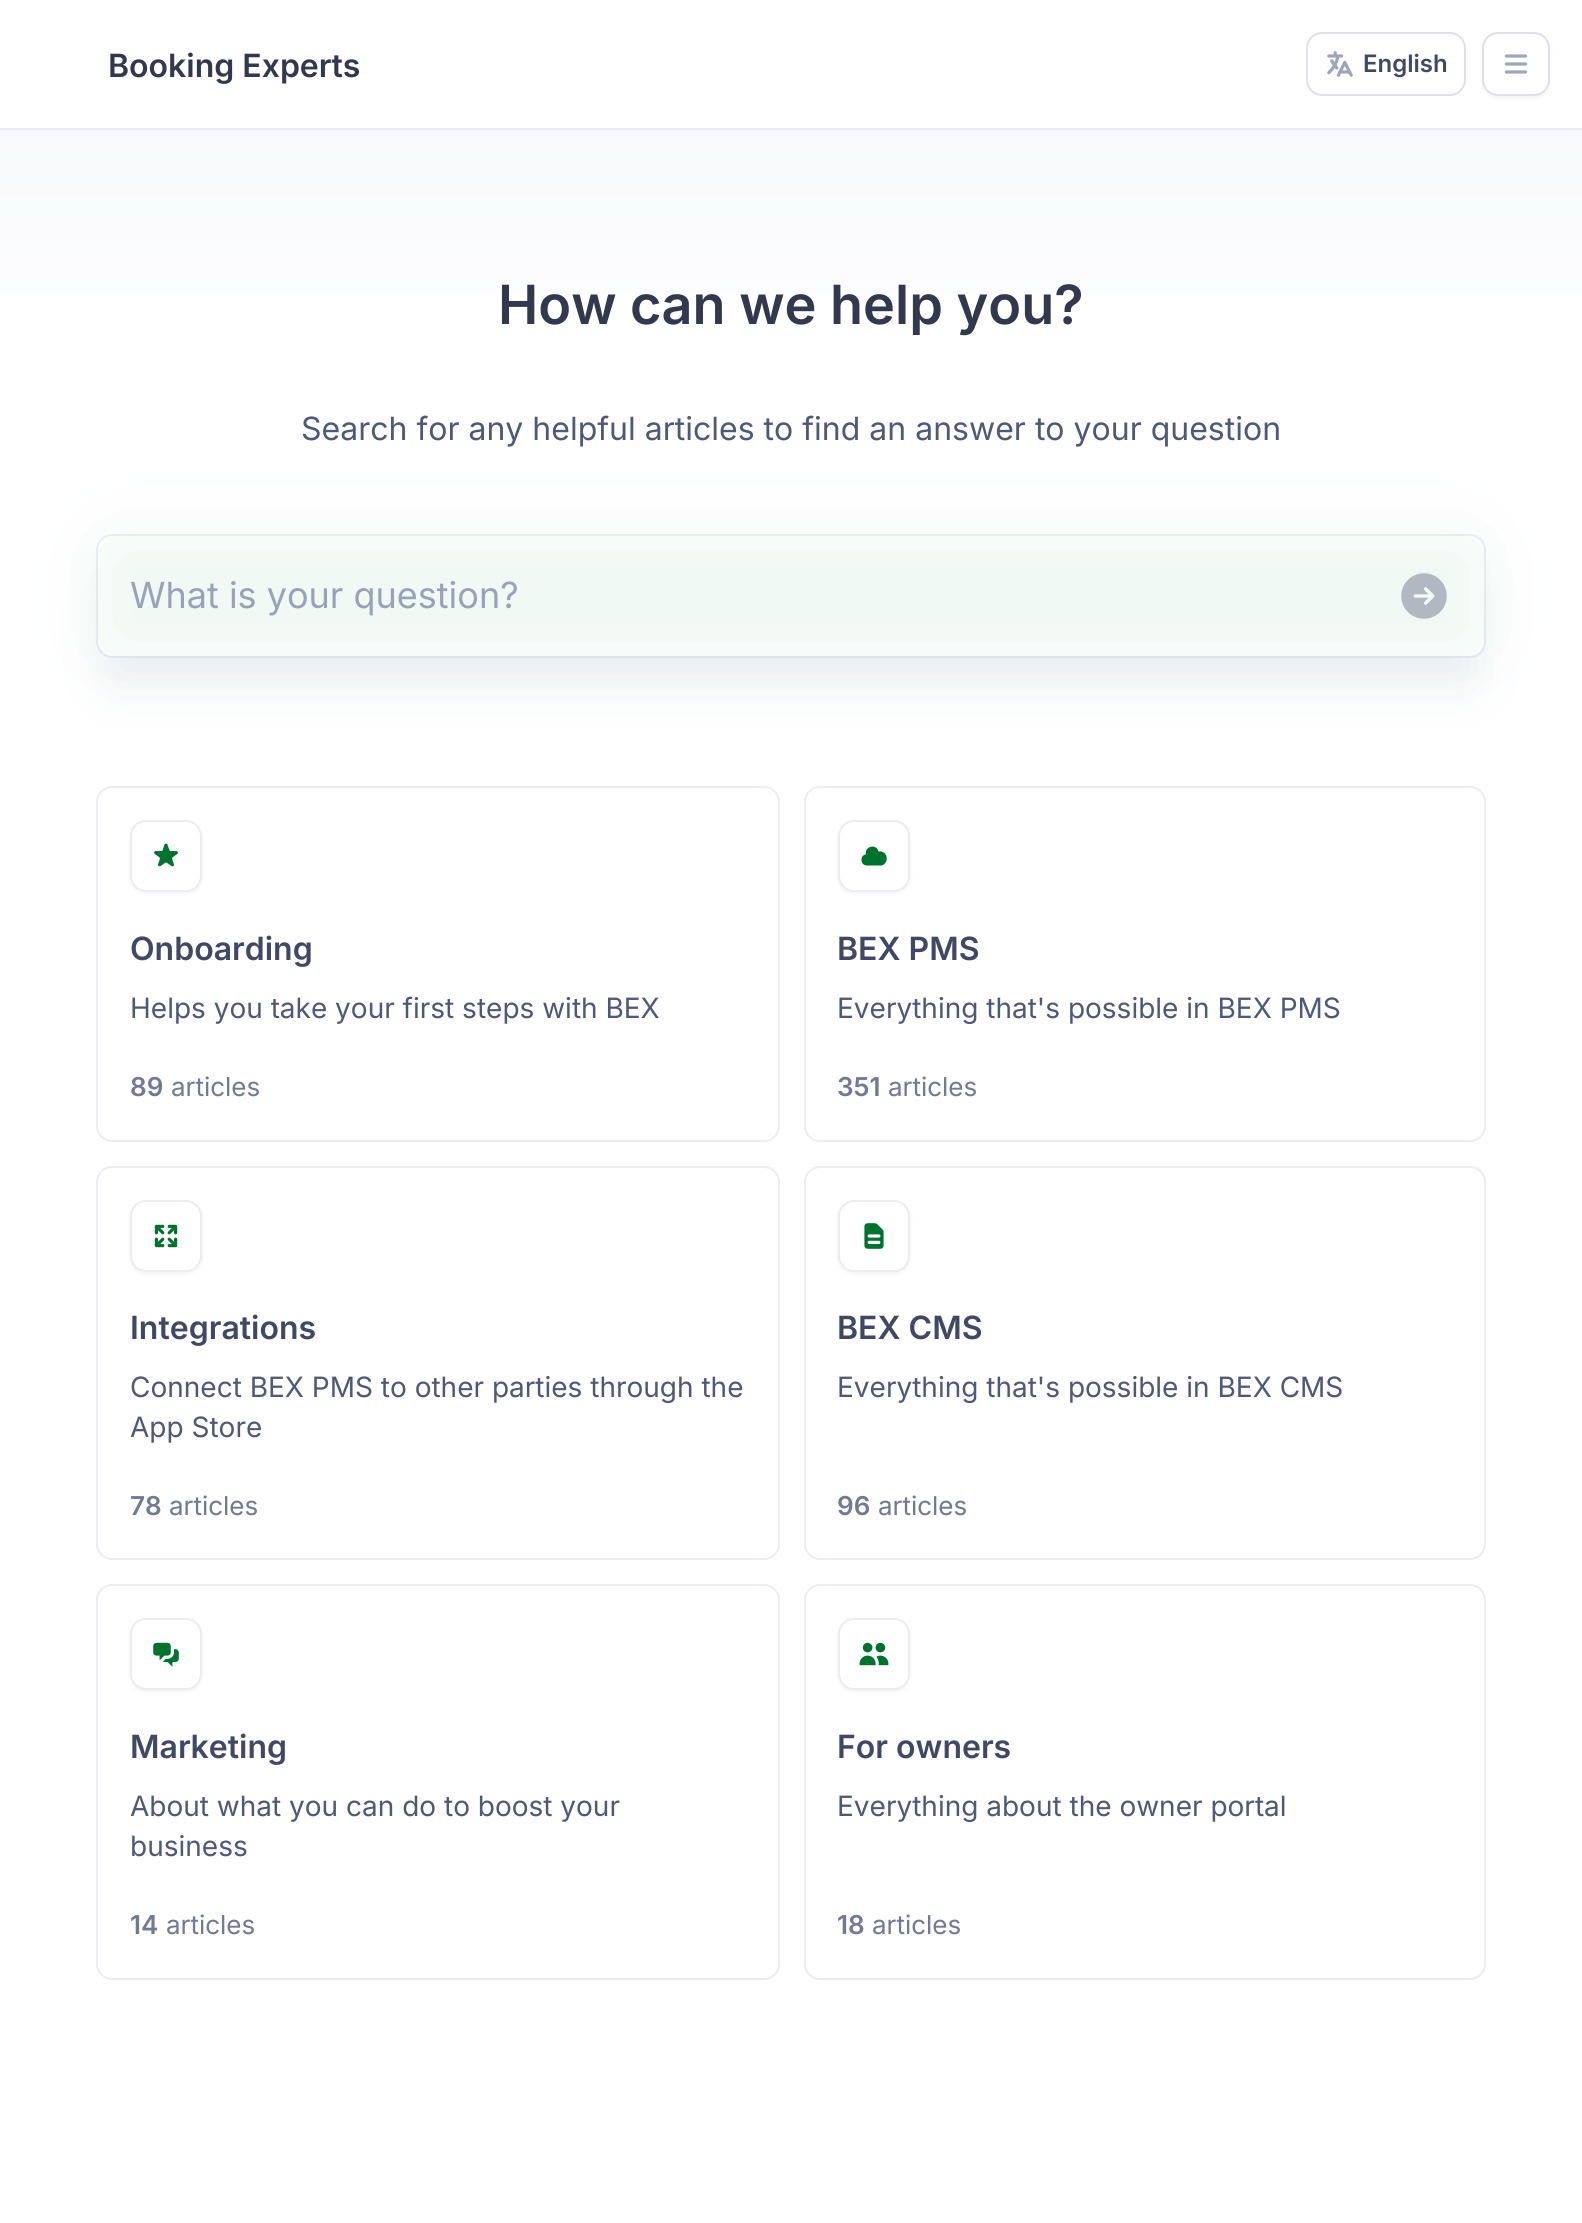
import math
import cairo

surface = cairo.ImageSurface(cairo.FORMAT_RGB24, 1582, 2223)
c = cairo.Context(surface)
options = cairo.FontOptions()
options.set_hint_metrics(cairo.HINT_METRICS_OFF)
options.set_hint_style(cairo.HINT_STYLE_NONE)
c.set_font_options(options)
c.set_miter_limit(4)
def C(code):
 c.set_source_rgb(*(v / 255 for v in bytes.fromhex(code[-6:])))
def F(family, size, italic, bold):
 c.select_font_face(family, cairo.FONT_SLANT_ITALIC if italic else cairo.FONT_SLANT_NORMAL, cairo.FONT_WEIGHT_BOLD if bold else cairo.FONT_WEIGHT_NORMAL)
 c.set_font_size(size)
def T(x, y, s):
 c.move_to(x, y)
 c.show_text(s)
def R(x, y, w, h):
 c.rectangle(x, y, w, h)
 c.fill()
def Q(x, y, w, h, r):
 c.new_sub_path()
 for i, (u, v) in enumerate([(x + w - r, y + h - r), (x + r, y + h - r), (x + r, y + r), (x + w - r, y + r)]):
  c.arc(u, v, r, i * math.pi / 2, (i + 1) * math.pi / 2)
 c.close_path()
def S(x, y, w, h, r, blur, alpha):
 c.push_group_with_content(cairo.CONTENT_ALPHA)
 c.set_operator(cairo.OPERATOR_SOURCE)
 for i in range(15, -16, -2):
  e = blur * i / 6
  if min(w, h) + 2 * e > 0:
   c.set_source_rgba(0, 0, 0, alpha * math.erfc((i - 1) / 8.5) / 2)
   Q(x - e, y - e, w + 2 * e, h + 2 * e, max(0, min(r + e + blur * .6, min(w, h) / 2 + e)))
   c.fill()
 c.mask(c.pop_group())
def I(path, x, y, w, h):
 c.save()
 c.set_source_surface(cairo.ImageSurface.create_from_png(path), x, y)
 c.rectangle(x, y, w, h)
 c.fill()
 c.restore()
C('ffffff')
c.paint()
C('ebedf2')
R(0,128,1582,2)
F('Inter SemiBold',32,0,0)
C('32384d')
T(108,77,'Booking Experts')
Q(1307,33,158,62,15)
C('dee1ea')
c.stroke()
I('1.png',1327,51,26,26)
F('Inter SemiBold',24,0,0)
C('404864')
T(1363,72,'English')
C('000000')
S(1482,34,68,64,16,2,.05)
C('ffffff')
Q(1483,33,66,62,15)
c.fill_preserve()
C('dee1ea')
c.stroke()
I('2.png',1504,54,24,20)
gradient = cairo.LinearGradient(791,130,791,386)
gradient.add_color_stop_rgba(0,0.973,0.976,0.988,1)
gradient.add_color_stop_rgba(1,1,1,1,1)
c.set_source(gradient)
R(0,130,1582,165)
F('Inter SemiBold',54,0,0)
C('32384d')
T(498,324,'How can we help you?')
F('Inter',32,0,0)
C('4f5878')
T(301,440,'Search for any helpful articles to find an answer to your question')
C('d6eee0')
S(96,534,1390,124,24,32,.38)
Q(97,535,1388,122,15)
c.set_source_rgba(0.871,0.882,0.918,0.6)
c.stroke()
c.save()
c.set_fill_rule(cairo.FILL_RULE_EVEN_ODD)
c.new_path()
c.move_to(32,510)
c.line_to(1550,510)
c.line_to(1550,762)
c.line_to(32,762)
c.close_path()
c.move_to(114,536)
c.line_to(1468,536)
c.curve_to(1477,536,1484,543,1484,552)
c.line_to(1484,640)
c.curve_to(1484,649,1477,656,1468,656)
c.line_to(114,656)
c.curve_to(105,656,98,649,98,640)
c.line_to(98,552)
c.curve_to(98,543,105,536,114,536)
c.close_path()
c.clip()
C('b2b8cd')
S(108,586,1366,100,6,25,.2)
c.restore()
F('Inter',36,0,0)
C('98a2b8')
T(130,608,'What is your question?')
I('3.png',1401,573,46,46)
Q(97,787,682,354,15)
C('ebedf2')
c.stroke()
C('000000')
S(130,822,72,72,16,2,.05)
C('ffffff')
Q(131,821,70,70,15)
c.fill_preserve()
C('ebedf2')
c.stroke()
I('4.png',154,843,24,24)
F('Inter SemiBold',32,0,0)
C('404864')
T(130,960,'Onboarding')
F('Inter',28,0,0)
C('4f5878')
T(130,1018,'Helps you take your first steps with BEX')
F('Inter SemiBold',26,0,0)
C('727993')
T(130,1096,'89')
F('Inter',26,0,0)
T(171,1096,'articles')
Q(805,787,680,354,15)
C('ebedf2')
c.stroke()
C('000000')
S(838,822,72,72,16,2,.05)
C('ffffff')
Q(839,821,70,70,15)
c.fill_preserve()
C('ebedf2')
c.stroke()
C('00722f')
c.new_path()
c.move_to(867,865.5)
c.curve_to(860,865.5,859.5,855,866,854.5)
c.curve_to(864,846.5,876.5,843,878.5,851.5)
c.curve_to(887.5,850,890,863,881.5,865.5)
c.close_path()
c.fill()
F('Inter SemiBold',32,0,0)
C('404864')
T(837,960,'BEX PMS')
F('Inter',28,0,0)
C('4f5878')
T(837,1018,'Everything that\'s possible in BEX PMS')
F('Inter SemiBold',26,0,0)
C('727993')
T(837,1096,'351')
F('Inter',26,0,0)
T(888,1096,'articles')
Q(97,1167,682,392,15)
C('ebedf2')
c.stroke()
C('000000')
S(130,1202,72,72,16,2,.05)
C('ffffff')
Q(131,1201,70,70,15)
c.fill_preserve()
C('ebedf2')
c.stroke()
I('5.png',154,1224,24,24)
F('Inter SemiBold',32,0,0)
C('404864')
T(130,1339,'Integrations')
F('Inter',28,0,0)
C('4f5878')
T(130,1397,'Connect BEX PMS to other parties through the')
T(130,1437,'App Store')
F('Inter SemiBold',26,0,0)
C('727993')
T(130,1515,'78')
F('Inter',26,0,0)
T(169,1515,'articles')
Q(805,1167,680,392,15)
C('ebedf2')
c.stroke()
C('000000')
S(838,1202,72,72,16,2,.05)
C('ffffff')
Q(839,1201,70,70,15)
c.fill_preserve()
C('ebedf2')
c.stroke()
I('6.png',864,1223,20,26)
F('Inter SemiBold',32,0,0)
C('404864')
T(837,1339,'BEX CMS')
F('Inter',28,0,0)
C('4f5878')
T(837,1397,'Everything that\'s possible in BEX CMS')
F('Inter SemiBold',26,0,0)
C('727993')
T(837,1515,'96')
F('Inter',26,0,0)
T(878,1515,'articles')
Q(97,1585,682,394,15)
C('ebedf2')
c.stroke()
C('000000')
S(130,1620,72,72,16,2,.05)
C('ffffff')
Q(131,1619,70,70,15)
c.fill_preserve()
C('ebedf2')
c.stroke()
I('7.png',153,1642,26,25)
F('Inter SemiBold',32,0,0)
C('404864')
T(130,1758,'Marketing')
F('Inter',28,0,0)
C('4f5878')
T(130,1816,'About what you can do to boost your')
T(130,1856,'business')
F('Inter SemiBold',26,0,0)
C('727993')
T(130,1934,'14')
F('Inter',26,0,0)
T(166,1934,'articles')
Q(805,1585,680,394,15)
C('ebedf2')
c.stroke()
C('000000')
S(838,1620,72,72,16,2,.05)
C('ffffff')
Q(839,1619,70,70,15)
c.fill_preserve()
C('ebedf2')
c.stroke()
I('8.png',859,1642,30,24)
F('Inter SemiBold',32,0,0)
C('404864')
T(837,1758,'For owners')
F('Inter',28,0,0)
C('4f5878')
T(837,1816,'Everything about the owner portal')
F('Inter SemiBold',26,0,0)
C('727993')
T(837,1934,'18')
F('Inter',26,0,0)
T(872,1934,'articles')
surface.write_to_png('o.png')
